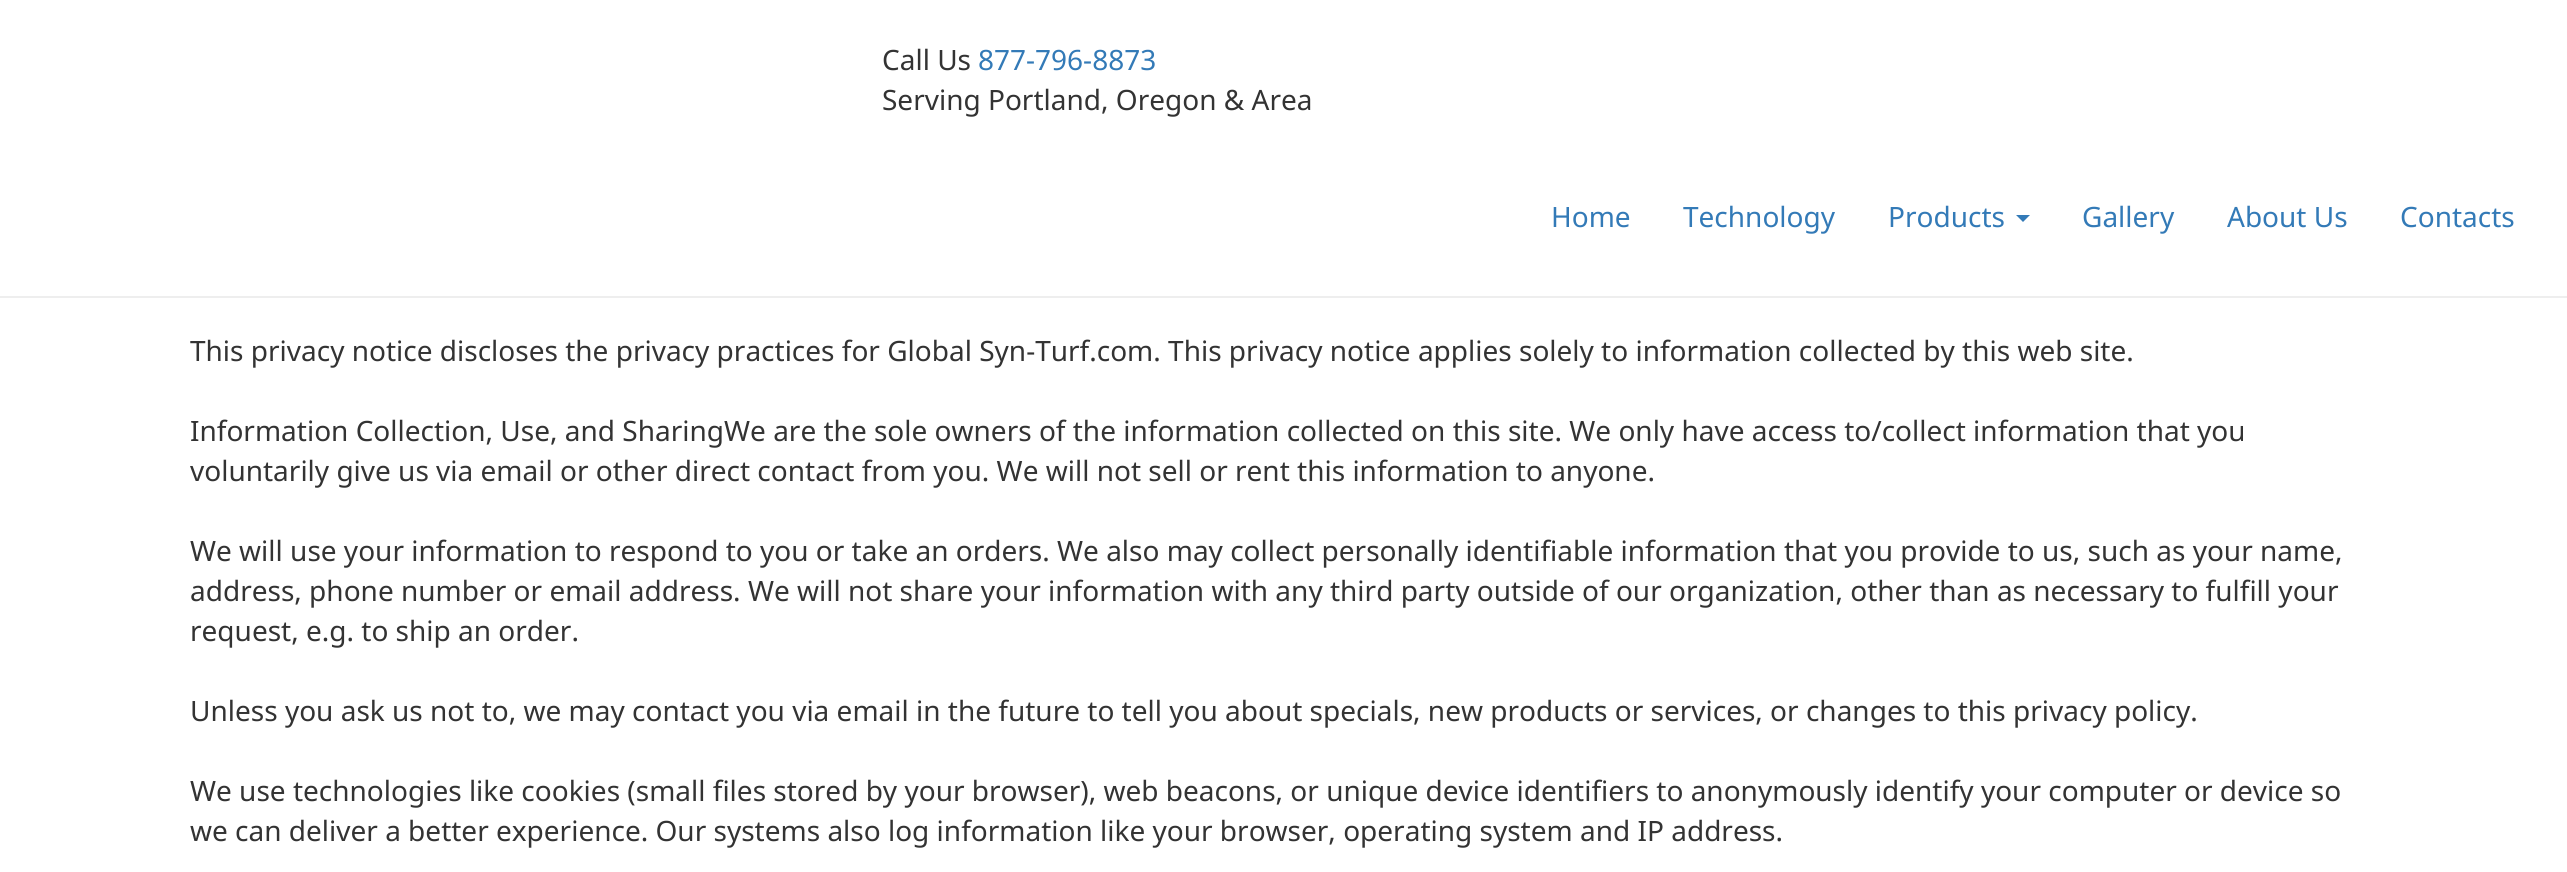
import math
import cairo

surface = cairo.ImageSurface(cairo.FORMAT_RGB24, 2567, 872)
c = cairo.Context(surface)
options = cairo.FontOptions()
options.set_hint_metrics(cairo.HINT_METRICS_OFF)
options.set_hint_style(cairo.HINT_STYLE_NONE)
c.set_font_options(options)
c.set_miter_limit(4)
def C(code):
 c.set_source_rgb(*(v / 255 for v in bytes.fromhex(code[-6:])))
def F(family, size, italic, bold):
 c.select_font_face(family, cairo.FONT_SLANT_ITALIC if italic else cairo.FONT_SLANT_NORMAL, cairo.FONT_WEIGHT_BOLD if bold else cairo.FONT_WEIGHT_NORMAL)
 c.set_font_size(size)
def T(x, y, s):
 c.move_to(x, y)
 c.show_text(s)
def R(x, y, w, h):
 c.rectangle(x, y, w, h)
 c.fill()
C('ffffff')
c.paint()
F('Noto Sans',28,0,0)
C('333333')
T(882,70,'Call Us')
C('337ab7')
T(978,70,'877-796-8873')
C('333333')
T(882,110,'Serving Portland, Oregon & Area')
C('337ab7')
T(1551,227,'Home')
T(1683,227,'Technology')
T(1888,227,'Products')
c.new_path()
c.move_to(2016,215)
c.line_to(2030,215)
c.line_to(2023,222)
c.close_path()
c.fill()
T(2082,227,'Gallery')
T(2227,227,'About Us')
T(2400,227,'Contacts')
C('eeeeee')
R(0,296,2567,2)
C('333333')
T(190,361,'This privacy notice discloses the privacy practices for Global Syn-Turf.com. This privacy notice applies solely to information collected by this web site.')
T(190,441,'Information Collection, Use, and SharingWe are the sole owners of the information collected on this site. We only have access to/collect information that you')
T(190,481,'voluntarily give us via email or other direct contact from you. We will not sell or rent this information to anyone.')
T(190,561,'We will use your information to respond to you or take an orders. We also may collect personally identifiable information that you provide to us, such as your name,')
T(190,601,'address, phone number or email address. We will not share your information with any third party outside of our organization, other than as necessary to fulfill your')
T(190,641,'request, e.g. to ship an order.')
T(190,721,'Unless you ask us not to, we may contact you via email in the future to tell you about specials, new products or services, or changes to this privacy policy.')
T(190,801,'We use technologies like cookies (small files stored by your browser), web beacons, or unique device identifiers to anonymously identify your computer or device so')
T(190,841,'we can deliver a better experience. Our systems also log information like your browser, operating system and IP address.')
surface.write_to_png('o.png')
